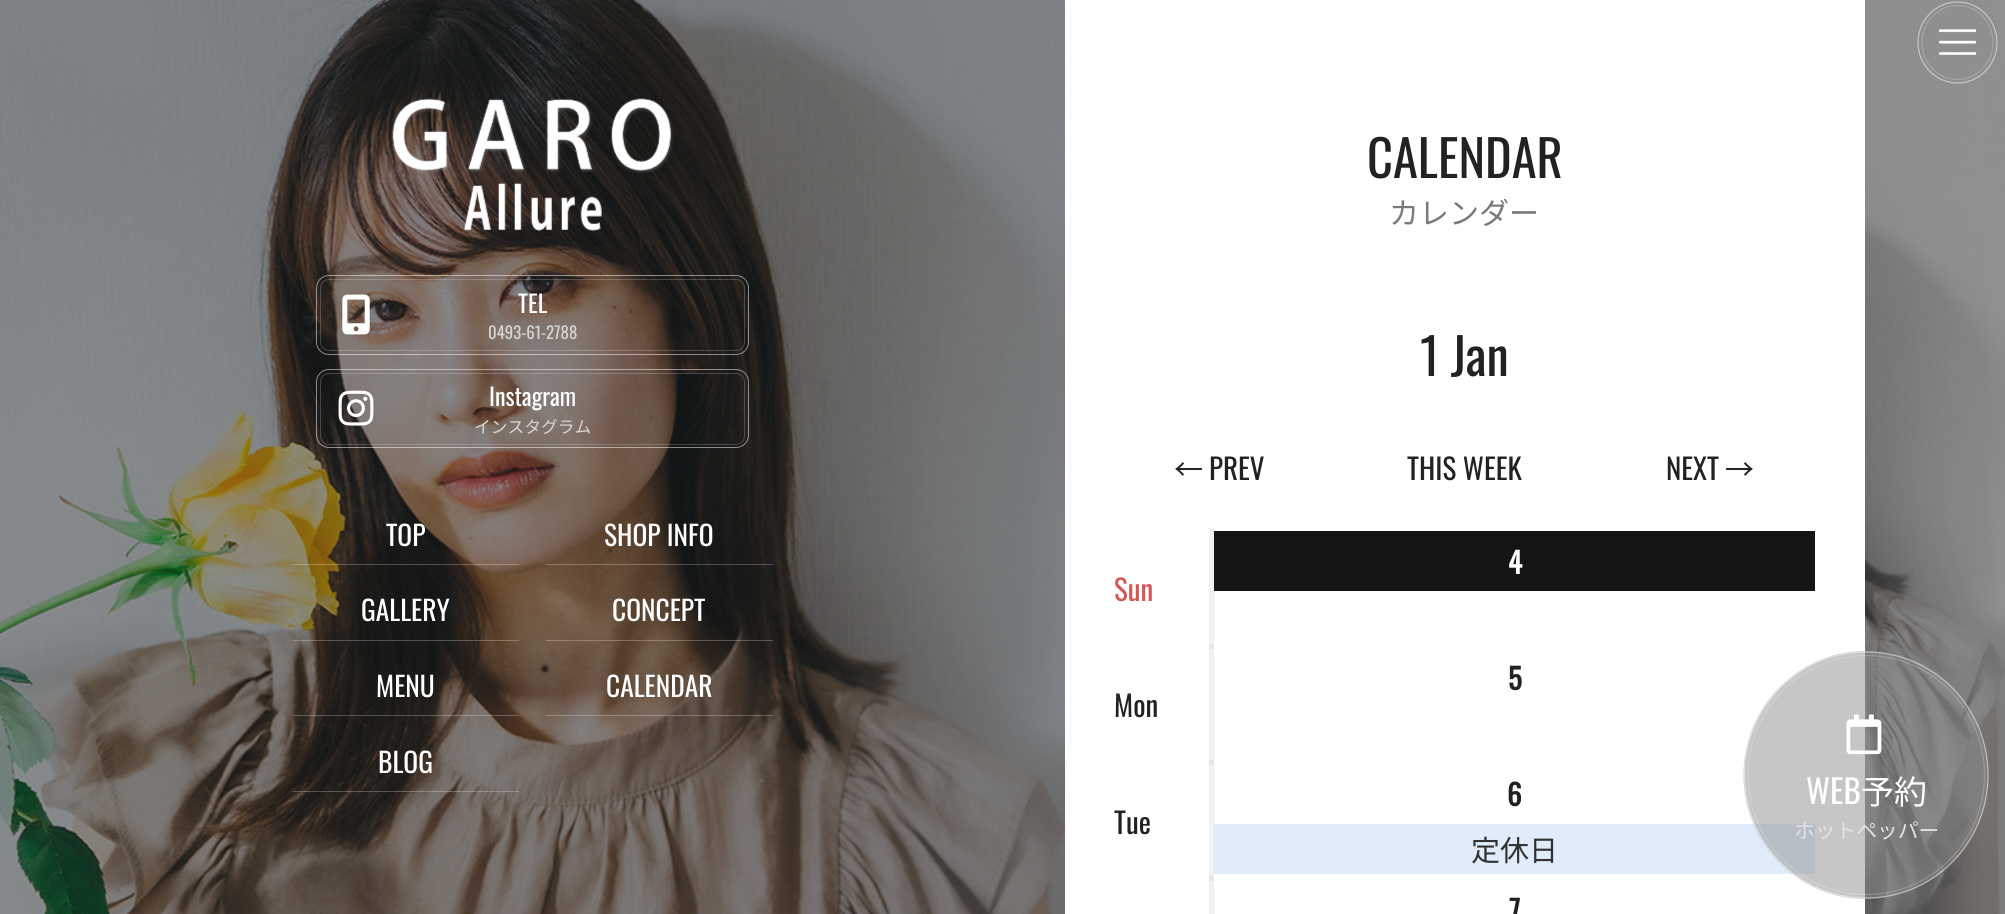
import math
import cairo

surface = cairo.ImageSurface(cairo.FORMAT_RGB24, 2005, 914)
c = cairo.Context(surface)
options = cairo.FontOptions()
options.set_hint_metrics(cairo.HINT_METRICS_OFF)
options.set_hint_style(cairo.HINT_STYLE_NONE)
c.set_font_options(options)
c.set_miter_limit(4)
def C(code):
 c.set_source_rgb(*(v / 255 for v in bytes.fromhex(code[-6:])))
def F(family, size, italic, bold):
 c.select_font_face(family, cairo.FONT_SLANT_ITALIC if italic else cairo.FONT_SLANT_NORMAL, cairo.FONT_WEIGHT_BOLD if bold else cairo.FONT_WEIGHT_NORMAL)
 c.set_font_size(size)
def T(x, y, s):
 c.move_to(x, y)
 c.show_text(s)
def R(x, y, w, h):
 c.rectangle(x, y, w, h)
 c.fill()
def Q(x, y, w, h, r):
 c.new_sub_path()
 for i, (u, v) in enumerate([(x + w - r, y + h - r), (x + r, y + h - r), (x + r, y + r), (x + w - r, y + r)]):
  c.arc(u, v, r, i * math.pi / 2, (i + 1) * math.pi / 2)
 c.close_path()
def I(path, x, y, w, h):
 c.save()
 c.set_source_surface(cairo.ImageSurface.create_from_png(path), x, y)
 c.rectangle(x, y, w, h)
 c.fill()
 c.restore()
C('ffffff')
c.paint()
I('6.png',1865,0,140,914)
c.new_path()
c.move_to(1957.5,2)
c.curve_to(1979,2,1997,20,1997,42.5)
c.curve_to(1997,65,1979,83,1957.5,83)
c.curve_to(1936,83,1918,65,1918,42.5)
c.curve_to(1918,20,1936,2,1957.5,2)
c.close_path()
c.set_source_rgba(1,1,1,0.5)
c.set_line_width(1.2)
c.stroke()
c.new_path()
c.move_to(1957.5,5.5)
c.curve_to(1977,5.5,1993,22,1993,42.5)
c.curve_to(1993,63,1977,79.5,1957.5,79.5)
c.curve_to(1938,79.5,1922,63,1922,42.5)
c.curve_to(1922,22,1938,5.5,1957.5,5.5)
c.close_path()
c.set_source_rgba(1,1,1,0.2)
c.stroke()
I('1.png',1939,29,37,26)
I('2.png',0,0,1065,914)
I('3.png',392,98,281,133)
Q(316.5,275.5,432,79,12.5)
c.set_source_rgba(1,1,1,0.5)
c.set_line_width(1)
c.stroke()
Q(320.5,279.5,424,71,8.5)
c.set_source_rgba(1,1,1,0.2)
c.stroke()
I('4.png',342,294,28,41)
F('Oswald',24,0,0)
C('ffffff')
T(518,313,'TEL')
F('Oswald',16.75,0,0)
C('d9d5d4')
T(488,339,'0493-61-2788')
Q(316.5,369.5,432,78,12.5)
c.set_source_rgba(1,1,1,0.5)
c.stroke()
Q(320.5,373.5,424,71,8.5)
c.set_source_rgba(1,1,1,0.2)
c.stroke()
I('5.png',338,390,36,36)
F('Oswald',24,0,0)
C('ffffff')
T(489,406,'Instagram')
F('Noto Sans JP Thin',16.75,0,0)
C('d9d5d4')
T(474,433,'インスタグラム')
c.set_source_rgba(1,1,1,0.25)
R(293,564,226,1)
F('Oswald',27.5,0,0)
C('ffffff')
T(386,546,'TOP')
c.set_source_rgba(1,1,1,0.25)
R(546,564,227,1)
C('ffffff')
T(604,546,'SHOP INFO')
c.set_source_rgba(1,1,1,0.25)
R(293,640,226,1)
C('ffffff')
T(361,621,'GALLERY')
c.set_source_rgba(1,1,1,0.25)
R(546,640,227,1)
C('ffffff')
T(612,621,'CONCEPT')
c.set_source_rgba(1,1,1,0.25)
R(293,715,226,1)
C('ffffff')
T(376,697,'MENU')
c.set_source_rgba(1,1,1,0.25)
R(546,715,227,1)
C('ffffff')
T(606,697,'CALENDAR')
c.set_source_rgba(1,1,1,0.25)
R(293,791,226,1)
C('ffffff')
T(378,773,'BLOG')
C('f2f2f2')
R(1209,528,5,386)
C('e6e6e6')
R(1209,644,5,5)
R(1209,760,5,5)
F('Oswald',50.5,0,0)
C('222222')
T(1367,178,'CALENDAR')
F('Noto Sans JP Thin',30,0,0)
C('7a7a7a')
T(1389,224,'カレンダー')
F('Oswald',50.5,0,0)
C('222222')
T(1420,376,'1 Jan')
F('Noto Sans JP Thin',29,0,0)
T(1174,480,'←')
F('Oswald',29,0,0)
T(1209,480,'PREV')
T(1407,480,'THIS WEEK')
T(1666,480,'NEXT')
F('Noto Sans JP Thin',29,0,0)
T(1725,480,'→')
C('141414')
R(1214,531,601,60)
F('Oswald',29,0,1)
C('ffffff')
T(1508,574,'4')
F('Oswald',29,0,0)
C('d65656')
T(1114,601,'Sun')
F('Oswald',29,0,1)
C('222222')
T(1508,690,'5')
F('Oswald',29,0,0)
T(1114,717,'Mon')
T(1114,834,'Tue')
F('Oswald',29,0,1)
T(1507,806,'6')
C('e0ecfa')
R(1214,824,601,50)
F('Noto Sans JP Thin',29,0,0)
C('323232')
T(1471,861,'定休日')
C('e6e6e6')
R(1209,876,5,5)
F('Oswald',29,0,1)
C('222222')
T(1509,922,'7')
c.set_source_rgba(0.561,0.561,0.561,0.5)
c.new_path()
c.move_to(1866,651)
c.curve_to(1933.5,651,1988.5,706.5,1988.5,775)
c.curve_to(1988.5,843.5,1933.5,899,1866,899)
c.curve_to(1798.5,899,1743.5,843.5,1743.5,775)
c.curve_to(1743.5,706.5,1798.5,651,1866,651)
c.close_path()
c.fill()
c.new_path()
c.move_to(1866,652)
c.curve_to(1933.5,652,1988,707,1988,775)
c.curve_to(1988,843,1933.5,898,1866,898)
c.curve_to(1799,898,1744.5,843,1744.5,775)
c.curve_to(1744.5,707,1799,652,1866,652)
c.close_path()
c.set_source_rgba(1,1,1,0.5)
c.set_line_width(1.2)
c.stroke()
c.new_path()
c.move_to(1866,655.5)
c.curve_to(1931.5,655.5,1984.5,709,1984.5,775)
c.curve_to(1984.5,841,1931.5,894.5,1866,894.5)
c.curve_to(1801,894.5,1748,841,1748,775)
c.curve_to(1748,709,1801,655.5,1866,655.5)
c.close_path()
c.set_source_rgba(1,1,1,0.2)
c.stroke()
I('7.png',1846,714,36,41)
F('Oswald',33,0,0)
C('ffffff')
T(1806,804,'WEB')
F('Noto Sans JP Thin',33,0,0)
T(1861,804,'予約')
F('Noto Sans JP Thin',20.75,0,0)
C('e2e3e3')
T(1794,838,'ホットペッパー')
surface.write_to_png('o.png')
